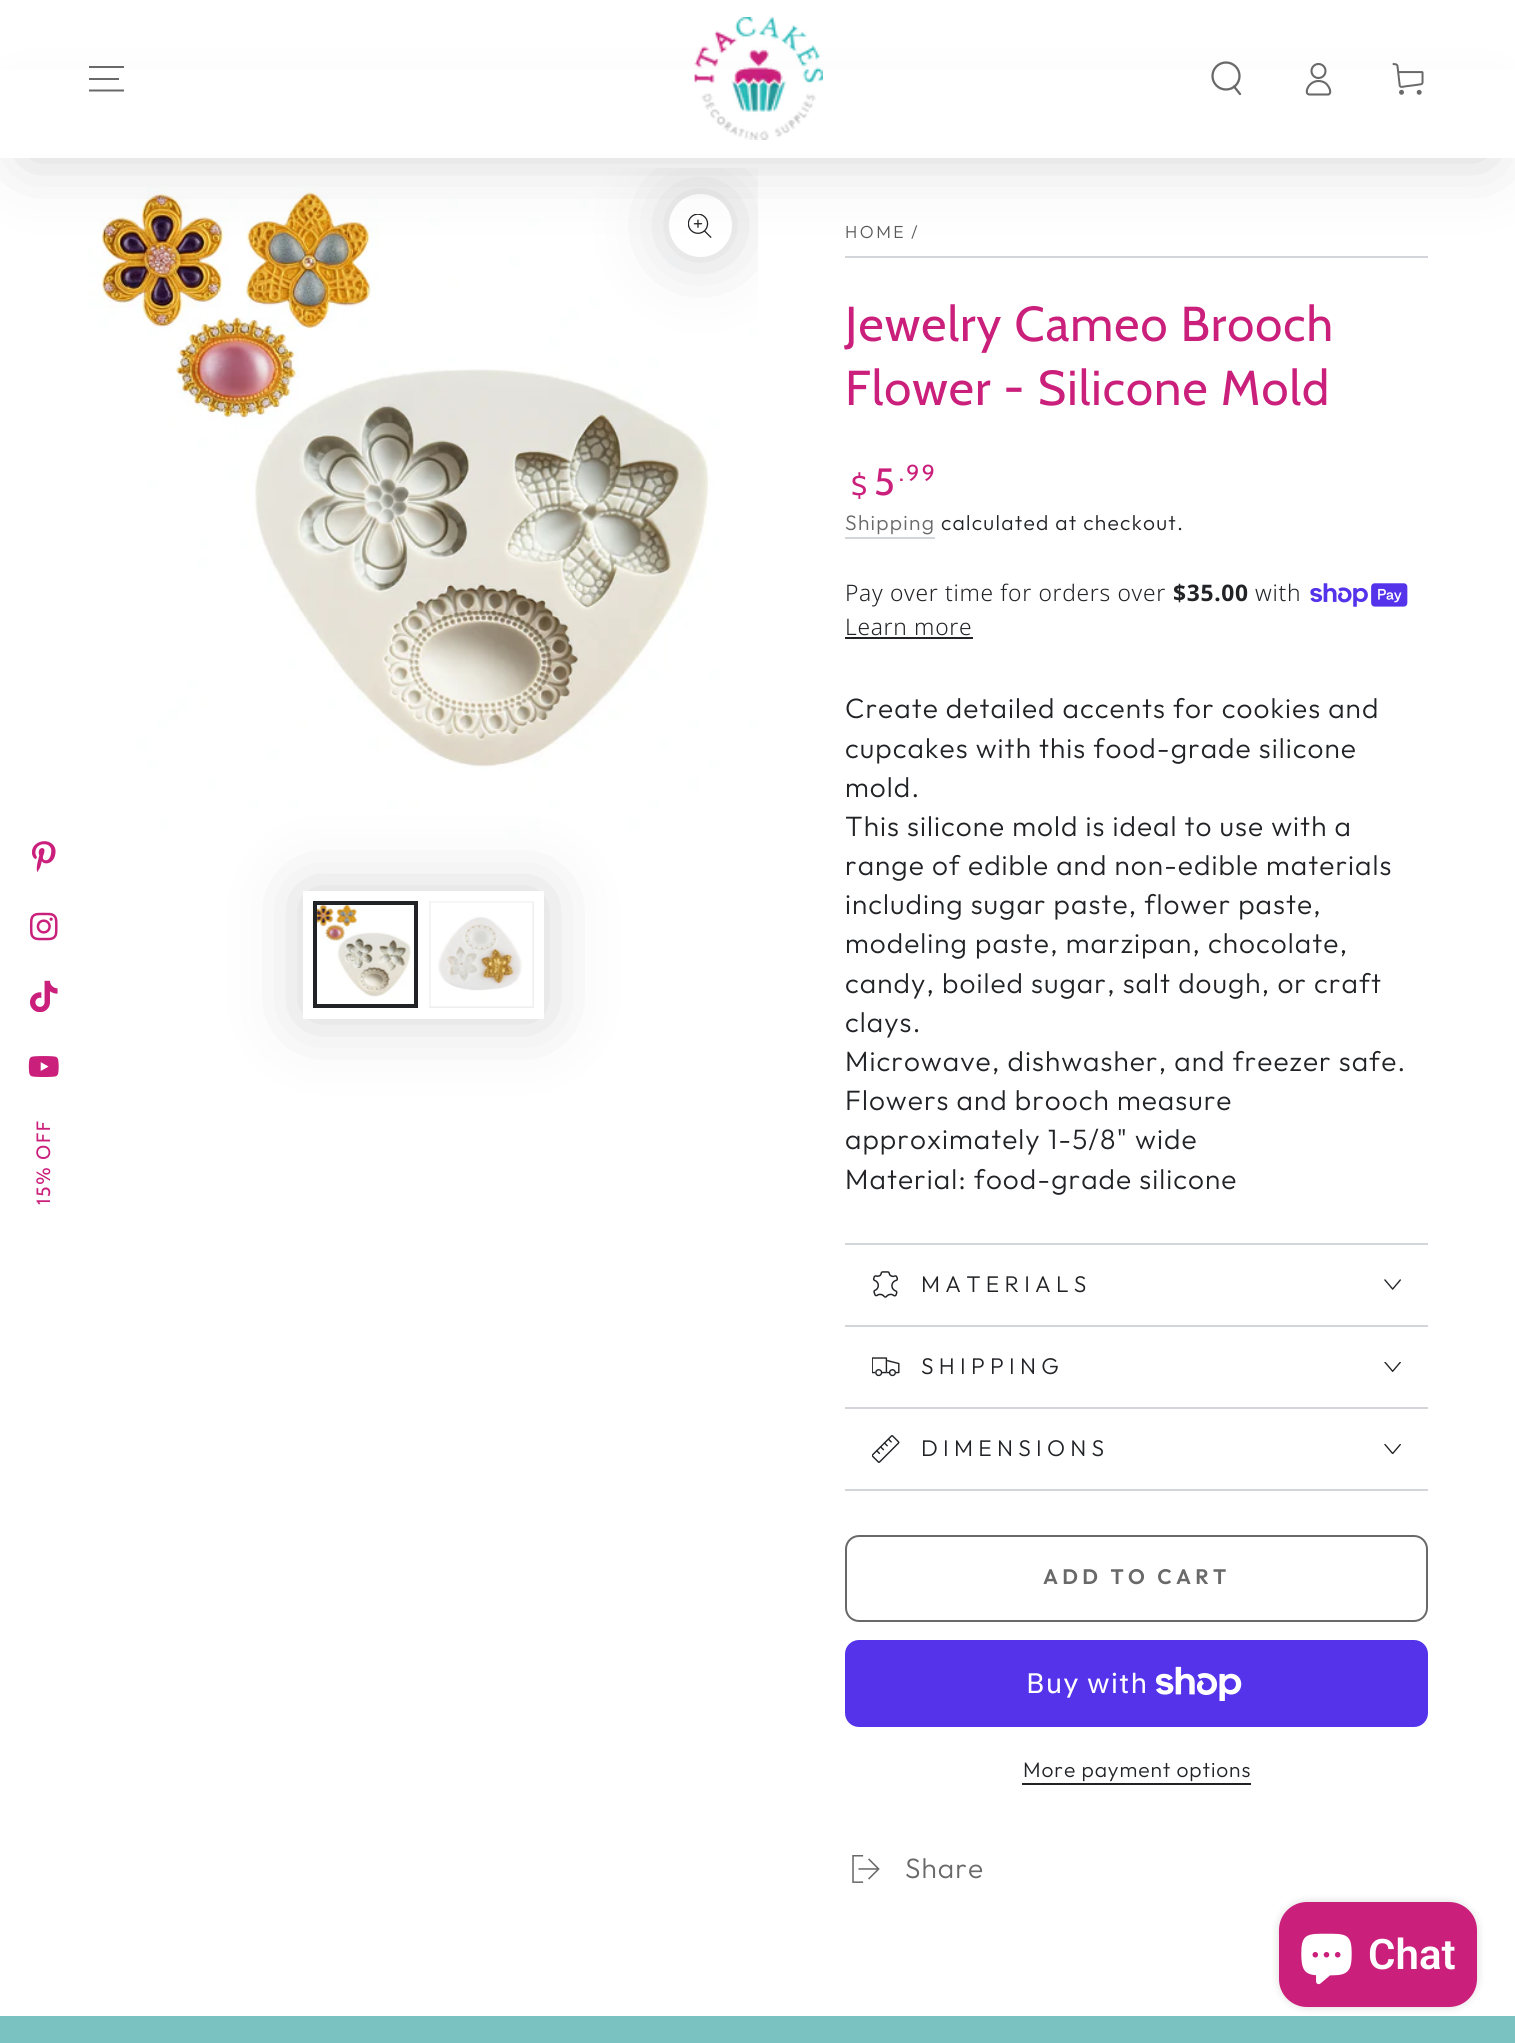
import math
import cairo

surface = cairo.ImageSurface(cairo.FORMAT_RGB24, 1515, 2043)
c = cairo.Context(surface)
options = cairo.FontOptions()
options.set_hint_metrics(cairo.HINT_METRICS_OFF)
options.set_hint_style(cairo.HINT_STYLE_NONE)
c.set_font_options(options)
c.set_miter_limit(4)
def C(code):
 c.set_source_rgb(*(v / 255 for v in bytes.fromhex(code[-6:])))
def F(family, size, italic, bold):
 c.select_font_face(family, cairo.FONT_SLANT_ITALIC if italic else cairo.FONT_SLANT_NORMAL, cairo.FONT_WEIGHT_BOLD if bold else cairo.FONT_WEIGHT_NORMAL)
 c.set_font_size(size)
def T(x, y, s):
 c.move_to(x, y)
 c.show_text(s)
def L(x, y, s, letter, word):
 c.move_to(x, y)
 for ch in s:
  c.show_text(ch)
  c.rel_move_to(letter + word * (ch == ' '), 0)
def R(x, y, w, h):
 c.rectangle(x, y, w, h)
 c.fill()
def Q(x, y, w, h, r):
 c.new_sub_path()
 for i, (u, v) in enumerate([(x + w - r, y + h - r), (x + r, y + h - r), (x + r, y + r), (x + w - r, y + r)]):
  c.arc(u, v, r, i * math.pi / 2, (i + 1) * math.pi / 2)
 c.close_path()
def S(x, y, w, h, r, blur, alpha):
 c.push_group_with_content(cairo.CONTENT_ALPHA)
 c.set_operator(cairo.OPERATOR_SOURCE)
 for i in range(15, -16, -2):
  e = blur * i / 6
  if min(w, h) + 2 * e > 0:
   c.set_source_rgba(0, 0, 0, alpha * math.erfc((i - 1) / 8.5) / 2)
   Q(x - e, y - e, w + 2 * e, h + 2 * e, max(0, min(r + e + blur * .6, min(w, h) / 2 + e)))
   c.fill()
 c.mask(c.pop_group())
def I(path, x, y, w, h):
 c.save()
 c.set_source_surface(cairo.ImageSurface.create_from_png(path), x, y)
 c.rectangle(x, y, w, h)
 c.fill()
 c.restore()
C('ffffff')
c.paint()
I('1.png',31,841,25,31)
I('2.png',29,912,29,29)
I('3.png',30,980,28,32)
I('4.png',28,1056,31,21)
F('Cabin',19.25,0,0)
C('ca1f7b')
c.save()
c.translate(50,1205)
c.rotate(-90 * math.pi / 180)
L(0,0,'15% OFF',1.75,0)
c.restore()
I('8.png',88,168,670,670)
c.save()
c.rectangle(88,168,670,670)
c.clip()
C('212326')
S(669,194,63,63,31.5,35,.2)
c.restore()
C('ffffff')
c.arc(700.5,225.5,31.5,0,2 * math.pi)
c.fill()
I('7.png',688,214,24,24)
C('d2d5d9')
R(845,256,583,2)
C('212326')
S(26,123,1463,35,17.5,35,.2)
C('ffffff')
R(0,69,1515,89)
c.new_path()
c.move_to(89,90.5)
c.line_to(124,90.5)
c.move_to(89,79)
c.line_to(119,79)
c.move_to(89,67)
c.line_to(124,67)
C('696969')
c.stroke()
I('5.png',694,17,129,123)
c.arc(1226,76,13.5,0,2 * math.pi)
c.set_line_width(2.3)
c.stroke()
c.new_path()
c.move_to(1234,86.5)
c.line_to(1240,94)
c.set_line_cap(cairo.LINE_CAP_ROUND)
c.stroke()
c.new_path()
c.move_to(1318.5,81)
c.curve_to(1308,81,1303.5,94.5,1309.5,94.5)
c.line_to(1328.5,94.5)
c.curve_to(1332.5,92.5,1328.5,86,1326.5,84)
c.curve_to(1324.5,82,1321.5,81,1318.5,81)
c.close_path()
c.set_line_width(2.1)
c.set_line_cap(cairo.LINE_CAP_BUTT)
c.stroke()
c.arc(1318.5,71,7,0,2 * math.pi)
c.stroke()
I('6.png',1392,63,32,32)
C('212326')
S(303,891,241,128,0,35,.2)
C('ffffff')
R(303,891,241,128)
I('9.png',317,905,97,99)
c.rectangle(315,903,101,103)
C('212326')
c.set_line_width(4)
c.stroke()
C('f3f3f3')
R(429,901,105,107)
I('10.png',429,901,105,107)
c.rectangle(430,902,103,105)
c.set_source_rgba(0.129,0.137,0.149,0.04)
c.set_line_width(2)
c.stroke()
F('Outfit Light',17.5,0,0)
C('595a5c')
L(845,238,'HOME',2.5,0)
L(911,238,'/',2.5,0)
F('Cabin',49,0,0)
C('ca1f7b')
L(845,341,'Jewelry Cameo Brooch',1.05,0)
L(845,405,'Flower - Silicone Mold',1.05,0)
F('Cabin',27,0,0)
L(851,495,'$',2.5,0)
F('Cabin',38,0,0)
L(874,495,'5',2.5,0)
F('Cabin',23,0,0)
L(899,481,'.99',2.5,0)
F('Outfit Light',21,0,0)
C('696969')
L(845,530,'Shipping',1.25,0)
C('d2d5d9')
R(845,537,90,2)
C('212326')
L(941,530,'calculated at checkout.',1.25,0)
F('Noto Sans Light',22.75,0,0)
L(845,601,'Pay over time for orders over',.7,0)
F('Noto Sans',22.75,0,1)
L(1173,601,'$35.00',.7,0)
F('Noto Sans Light',22.75,0,0)
L(1255,601,'with',.7,0)
I('11.png',1310,583,98,24)
L(845,635,'Learn more',.7,0)
R(845,637,128,2)
F('Outfit Light',28,0,0)
L(845,718,'Create detailed accents for cookies and',1.05,0)
L(845,758,'cupcakes with this food-grade silicone',1.05,0)
L(845,797,'mold.',1.05,0)
L(845,836,'This silicone mold is ideal to use with a',1.05,0)
L(845,875,'range of edible and non-edible materials',1.05,0)
L(845,914,'including sugar paste, flower paste,',1.05,0)
L(845,953,'modeling paste, marzipan, chocolate,',1.05,0)
L(845,993,'candy, boiled sugar, salt dough, or craft',1.05,0)
L(845,1032,'clays.',1.05,0)
L(845,1071,'Microwave, dishwasher, and freezer safe.',1.05,0)
L(845,1110,'Flowers and brooch measure',1.05,0)
L(845,1149,'approximately 1-5/8" wide',1.05,0)
L(845,1189,'Material: food-grade silicone',1.05,0)
C('d2d5d9')
R(845,1243,583,2)
R(845,1325,583,2)
I('12.png',872,1271,27,27)
F('Outfit Light',22.75,0,0)
C('212326')
L(921,1292,'MATERIALS',5.25,0)
I('13.png',1384,1279,17,11)
C('d2d5d9')
R(845,1407,583,2)
I('14.png',872,1357,28,20)
C('212326')
L(921,1374,'SHIPPING',5.25,0)
I('15.png',1384,1362,17,10)
C('d2d5d9')
R(845,1489,583,2)
I('16.png',872,1435,28,28)
C('212326')
L(921,1456,'DIMENSIONS',5.25,0)
I('17.png',1384,1444,17,10)
Q(846,1536,581,85,13)
C('696969')
c.stroke()
F('Outfit SemiBold',21,0,0)
L(1043,1584,'ADD TO CART',4.25,0)
C('5433eb')
Q(845,1640,583,87,14)
c.fill()
F('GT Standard',28,0,0)
C('ffffff')
L(1026,1693,'Buy with',1.05,0)
I('18.png',1156,1666,86,35)
F('Outfit Light',21,0,0)
C('212326')
L(1023,1777,'More payment options',.9,0)
R(1022,1783,229,2)
I('19.png',852,1855,28,28)
F('Outfit Light',28,0,0)
C('696969')
L(905,1878,'Share',1.05,0)
C('7ac1c1')
R(0,2016,1515,27)
C('000000')
S(1279,1902,198,105,28,4.5,.15)
C('ca1f7b')
Q(1279,1902,198,105,28)
c.fill()
I('20.png',1301,1933,51,52)
F('Roboto SemiBold',42,0,0)
C('ffffff')
T(1368,1969,'Chat')
surface.write_to_png('o.png')
